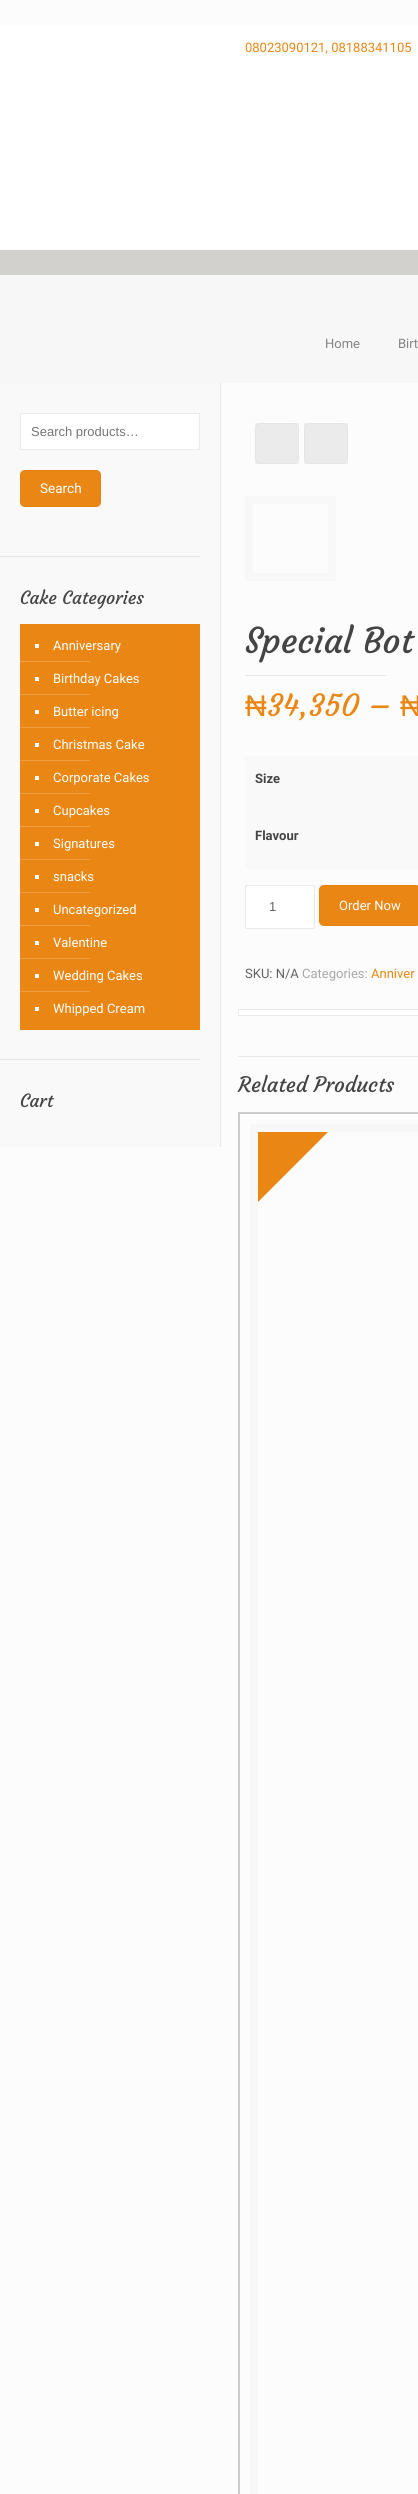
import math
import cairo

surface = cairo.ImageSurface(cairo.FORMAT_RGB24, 418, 2494)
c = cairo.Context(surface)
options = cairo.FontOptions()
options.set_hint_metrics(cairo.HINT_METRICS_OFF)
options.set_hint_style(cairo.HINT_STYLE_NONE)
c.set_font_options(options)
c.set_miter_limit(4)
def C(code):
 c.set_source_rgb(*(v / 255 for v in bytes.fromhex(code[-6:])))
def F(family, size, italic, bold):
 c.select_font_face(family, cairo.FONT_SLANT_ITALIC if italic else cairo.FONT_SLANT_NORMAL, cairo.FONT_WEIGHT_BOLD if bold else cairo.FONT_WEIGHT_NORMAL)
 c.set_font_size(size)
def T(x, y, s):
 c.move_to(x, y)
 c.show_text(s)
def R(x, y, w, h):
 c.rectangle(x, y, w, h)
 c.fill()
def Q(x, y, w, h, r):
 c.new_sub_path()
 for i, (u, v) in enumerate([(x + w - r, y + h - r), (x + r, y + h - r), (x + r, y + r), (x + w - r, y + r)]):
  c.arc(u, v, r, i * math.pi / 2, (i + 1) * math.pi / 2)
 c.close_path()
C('fcfcfc')
c.paint()
C('d2d1cd')
R(0,250,418,25)
C('ffffff')
R(0,25,418,225)
F('Roboto',13,0,0)
C('ea8613')
T(245,52,'08023090121, 08188341105')
C('f7f7f7')
R(0,275,418,108)
C('848484')
T(325,348,'Home')
T(398,348,'Birt')
C('e8e8e8')
R(220,383,1,764)
C('f9f9f9')
R(0,383,220,764)
C('ffffff')
c.rectangle(20.5,413.5,179,36)
c.fill_preserve()
C('ebebeb')
c.set_line_width(1)
c.stroke()
F('Liberation Sans',13,0,0)
C('757575')
T(31,436,'Search products…')
C('ea8613')
Q(20,470,81,37,5)
c.fill()
c.rectangle(20.5,470.5,80,36)
c.set_source_rgba(0,0,0,0.03)
c.stroke()
F('Roboto',13.5,0,0)
C('ffffff')
T(40,493,'Search')
C('e5e5e5')
R(0,556,200,1)
F('Courgette',18,0,0)
C('444444')
T(20,604,'Cake Categories')
C('ea8613')
R(20,624,180,406)
C('ffffff')
R(35,644,4,4)
F('Roboto',13,0,0)
T(53,650,'Anniversary')
C('ee9e42')
R(20,661,70,1)
C('ffffff')
R(35,677,4,4)
T(53,683,'Birthday Cakes')
C('ee9e42')
R(20,694,70,1)
C('ffffff')
R(35,710,4,4)
T(53,716,'Butter icing')
C('ee9e42')
R(20,727,70,1)
C('ffffff')
R(35,743,4,4)
T(53,749,'Christmas Cake')
C('ee9e42')
R(20,760,70,1)
C('ffffff')
R(35,776,4,4)
T(53,782,'Corporate Cakes')
C('ee9e42')
R(20,793,70,1)
C('ffffff')
R(35,809,4,4)
T(53,815,'Cupcakes')
C('ee9e42')
R(20,826,70,1)
C('ffffff')
R(35,842,4,4)
T(53,848,'Signatures')
C('ee9e42')
R(20,859,70,1)
C('ffffff')
R(35,875,4,4)
T(53,881,'snacks')
C('ee9e42')
R(20,892,70,1)
C('ffffff')
R(35,908,4,4)
T(53,914,'Uncategorized')
C('ee9e42')
R(20,925,70,1)
C('ffffff')
R(35,941,4,4)
T(53,947,'Valentine')
C('ee9e42')
R(20,958,70,1)
C('ffffff')
R(35,974,4,4)
T(53,980,'Wedding Cakes')
C('ee9e42')
R(20,991,70,1)
C('ffffff')
R(35,1007,4,4)
T(53,1013,'Whipped Cream')
C('e5e5e5')
R(0,1059,200,1)
F('Courgette',18,0,0)
C('444444')
T(20,1107,'Cart')
C('f7f7f7')
Q(255.5,423.5,43,40,4.5)
c.fill_preserve()
C('f0f0f0')
c.stroke()
c.set_source_rgba(0,0,0,0.05)
R(255,423,44,41)
C('f7f7f7')
Q(304.5,423.5,43,40,4.5)
c.fill_preserve()
C('f0f0f0')
c.stroke()
c.set_source_rgba(0,0,0,0.05)
R(304,423,44,41)
c.rectangle(249,500,83,77)
C('f8f8f8')
c.set_line_width(8)
c.stroke()
F('Courgette',35,0,0)
C('444444')
T(245,653,'Special Bot')
C('e8e8e8')
R(245,675,141,1)
F('Liberation Sans',30,0,0)
C('ea8613')
T(245,716,'₦')
F('Courgette',30,0,0)
T(267,716,'34,350 –')
F('Liberation Sans',30,0,0)
T(400,716,'₦')
C('f9f9f9')
Q(245,756,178,114,5)
c.fill()
F('Roboto',13,0,1)
C('444444')
T(255,783,'Size')
T(255,840,'Flavour')
C('ffffff')
c.rectangle(245.5,885.5,69,43)
c.fill_preserve()
C('ebebeb')
c.set_line_width(1)
c.stroke()
F('Liberation Sans',13,0,0)
C('626262')
T(269,911,'1')
C('ea8613')
Q(319,885,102,41,5)
c.fill()
c.rectangle(319.5,885.5,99,40)
c.set_source_rgba(0,0,0,0.03)
c.stroke()
F('Roboto',13,0,0)
C('ffffff')
T(339,910,'Order Now')
C('626262')
T(245,978,'SKU: N/A')
C('a8a8a8')
T(302,978,'Categories:')
C('ea8613')
T(371,978,'Anniver')
C('ffffff')
c.rectangle(238.5,1009.5,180,6)
c.fill_preserve()
C('ebebeb')
c.stroke()
C('e8e8e8')
R(238,1056,180,1)
F('Courgette',21,0,0)
C('444444')
T(238,1092,'Related Products')
c.rectangle(239,1113,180,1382)
C('cccccc')
c.set_line_width(2)
c.stroke()
c.rectangle(254,1128,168,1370)
C('f8f8f8')
c.set_line_width(8)
c.stroke()
C('ea8613')
c.new_path()
c.move_to(258,1132)
c.line_to(328,1132)
c.line_to(258,1202)
c.close_path()
c.fill()
surface.write_to_png('o.png')
